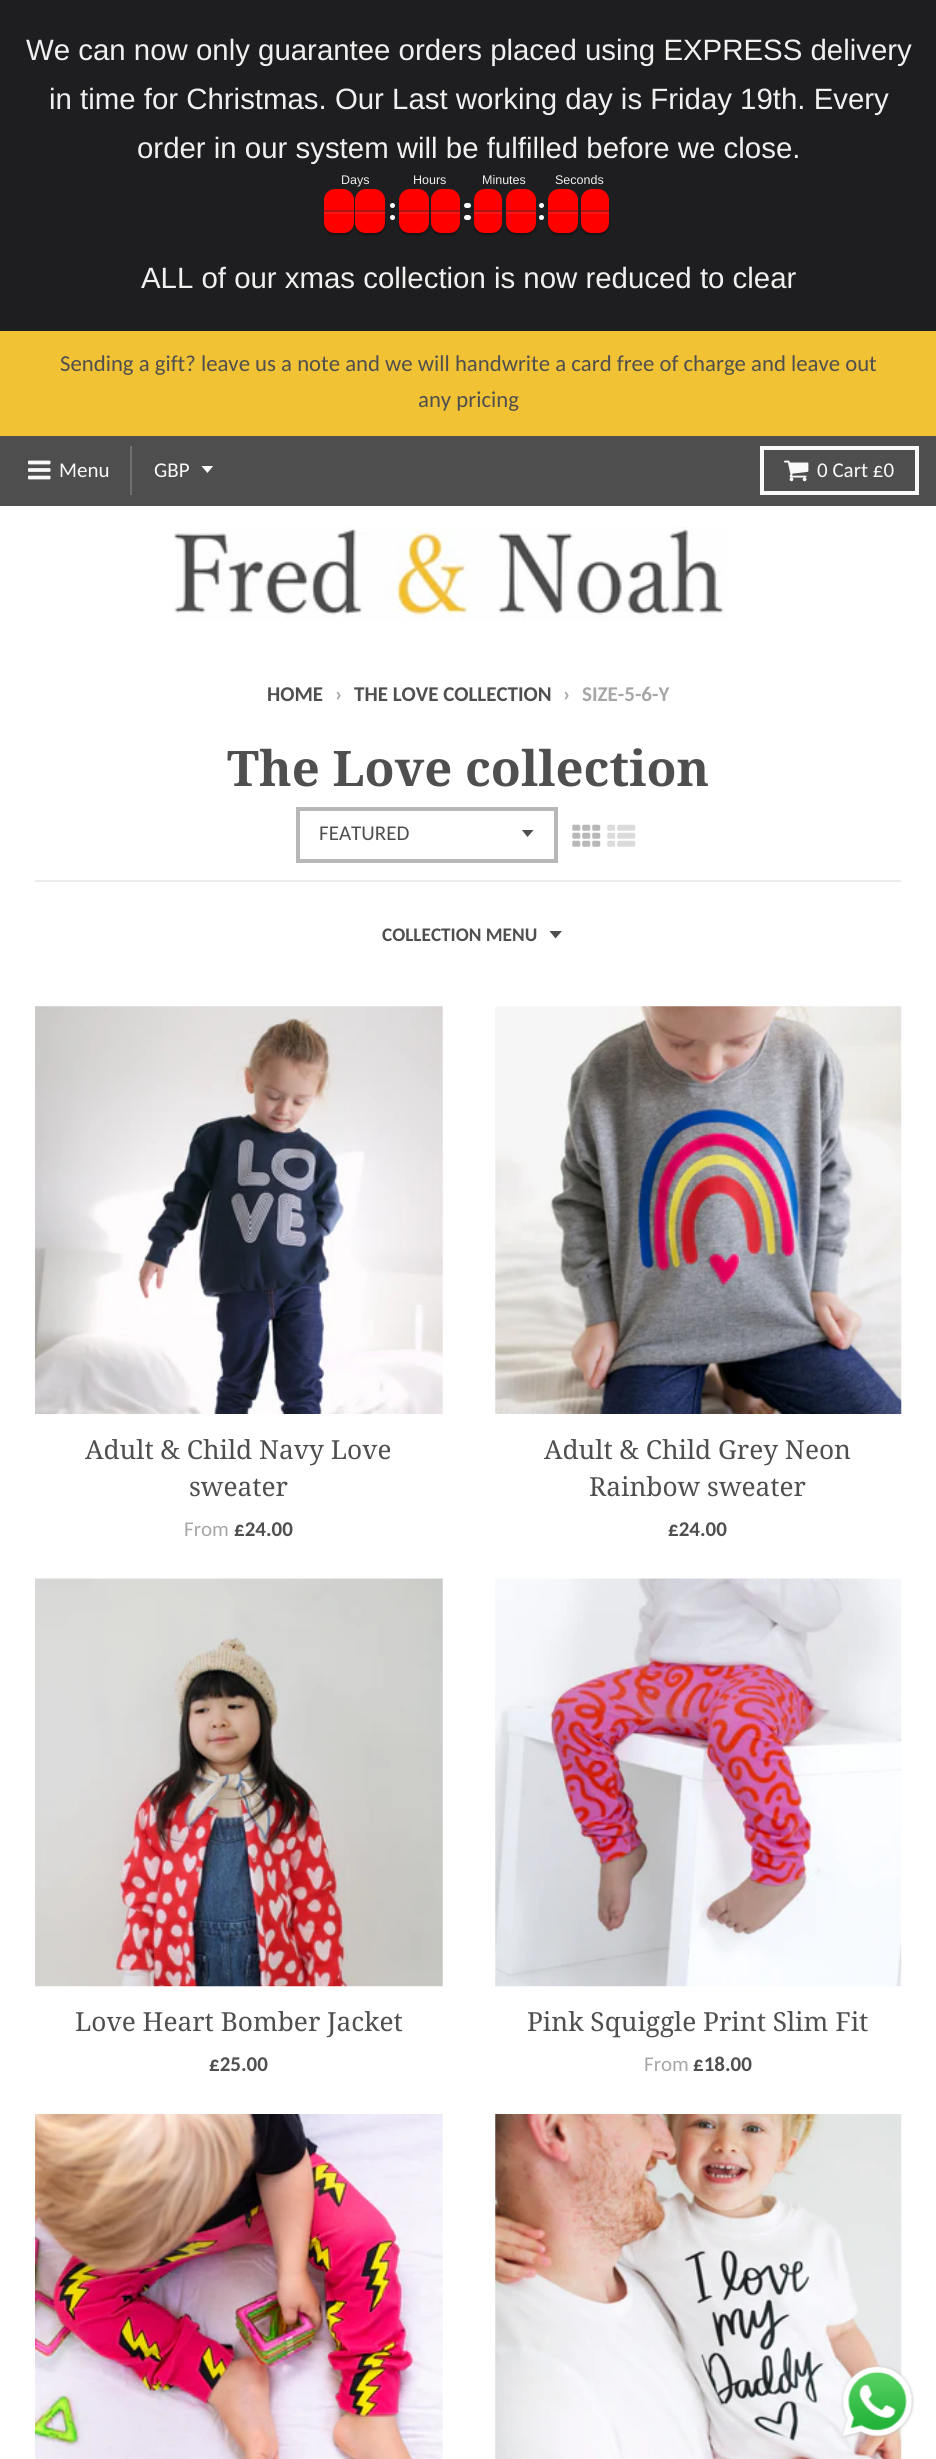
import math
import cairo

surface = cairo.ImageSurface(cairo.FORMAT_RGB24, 936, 2459)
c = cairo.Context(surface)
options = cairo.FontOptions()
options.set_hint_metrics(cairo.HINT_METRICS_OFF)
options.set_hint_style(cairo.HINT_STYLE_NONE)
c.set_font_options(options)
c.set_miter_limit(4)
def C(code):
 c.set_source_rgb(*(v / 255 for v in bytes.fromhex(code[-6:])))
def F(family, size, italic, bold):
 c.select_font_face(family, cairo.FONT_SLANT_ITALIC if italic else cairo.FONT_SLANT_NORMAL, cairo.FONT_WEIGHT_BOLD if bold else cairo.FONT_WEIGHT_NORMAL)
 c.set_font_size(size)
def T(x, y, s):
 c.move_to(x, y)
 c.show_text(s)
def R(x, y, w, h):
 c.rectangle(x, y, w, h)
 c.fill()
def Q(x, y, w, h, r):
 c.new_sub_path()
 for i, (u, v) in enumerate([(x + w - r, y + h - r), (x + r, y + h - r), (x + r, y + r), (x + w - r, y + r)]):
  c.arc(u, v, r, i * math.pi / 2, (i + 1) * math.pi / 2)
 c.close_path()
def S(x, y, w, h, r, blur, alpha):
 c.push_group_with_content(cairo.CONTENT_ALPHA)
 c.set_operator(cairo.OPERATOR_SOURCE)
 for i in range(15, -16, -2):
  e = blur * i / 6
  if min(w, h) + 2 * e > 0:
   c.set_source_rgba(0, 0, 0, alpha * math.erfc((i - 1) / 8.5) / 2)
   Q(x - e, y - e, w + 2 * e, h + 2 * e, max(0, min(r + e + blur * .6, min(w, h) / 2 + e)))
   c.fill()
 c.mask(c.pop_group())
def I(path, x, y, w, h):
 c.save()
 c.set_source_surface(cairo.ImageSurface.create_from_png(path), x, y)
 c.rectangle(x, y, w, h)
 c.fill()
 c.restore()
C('ffffff')
c.paint()
C('1e1e20')
R(0,0,936,331)
F('Liberation Sans',29.4,0,0)
C('f0f0f0')
T(26,60,'We can now only guarantee orders placed using EXPRESS delivery')
T(49,109,'in time for Christmas. Our Last working day is Friday 19th. Every')
T(137,158,'order in our system will be fulfilled before we close.')
F('Liberation Sans',12.5,0,0)
T(341,184,'Days')
C('000000')
S(324,214,30,21,10.5,1,.4)
S(355,214,30,21,10.5,1,.4)
C('ff0000')
c.new_path()
c.move_to(335,189)
c.line_to(343,189)
c.curve_to(349,189,354,194,354,200)
c.line_to(354,212)
c.line_to(324,212)
c.line_to(324,200)
c.curve_to(324,194,329,189,335,189)
c.close_path()
c.fill()
c.set_source_rgba(0.2,0.2,0.2,0.4)
R(324,210,30,2)
C('ff0000')
c.new_path()
c.move_to(324,212)
c.line_to(354,212)
c.line_to(354,222.5)
c.curve_to(354,228.5,349.5,233,343.5,233)
c.line_to(334.5,233)
c.curve_to(328.5,233,324,228.5,324,222.5)
c.close_path()
c.fill()
c.set_source_rgba(0.8,0.8,0.8,0.1)
R(324,212,30,2)
C('ff0000')
c.new_path()
c.move_to(366,189)
c.line_to(374,189)
c.curve_to(380,189,385,194,385,200)
c.line_to(385,212)
c.line_to(355,212)
c.line_to(355,200)
c.curve_to(355,194,360,189,366,189)
c.close_path()
c.fill()
c.set_source_rgba(0.2,0.2,0.2,0.4)
R(355,210,30,2)
C('ff0000')
c.new_path()
c.move_to(355,212)
c.line_to(385,212)
c.line_to(385,222.5)
c.curve_to(385,228.5,380.5,233,374.5,233)
c.line_to(365.5,233)
c.curve_to(359.5,233,355,228.5,355,222.5)
c.close_path()
c.fill()
c.set_source_rgba(0.8,0.8,0.8,0.1)
R(355,212,30,2)
C('f0f0f0')
T(413,184,'Hours')
C('000000')
S(399,214,30,21,10.5,1,.4)
S(431,214,29,21,10.5,1,.4)
C('ff0000')
c.new_path()
c.move_to(410,189)
c.line_to(418,189)
c.curve_to(424,189,429,194,429,200)
c.line_to(429,212)
c.line_to(399,212)
c.line_to(399,200)
c.curve_to(399,194,404,189,410,189)
c.close_path()
c.fill()
c.set_source_rgba(0.2,0.2,0.2,0.4)
R(399,210,30,2)
C('ff0000')
c.new_path()
c.move_to(399,212)
c.line_to(429,212)
c.line_to(429,222.5)
c.curve_to(429,228.5,424.5,233,418.5,233)
c.line_to(409.5,233)
c.curve_to(403.5,233,399,228.5,399,222.5)
c.close_path()
c.fill()
c.set_source_rgba(0.8,0.8,0.8,0.1)
R(399,212,30,2)
C('ff0000')
c.new_path()
c.move_to(442,189)
c.line_to(449,189)
c.curve_to(455,189,460,194,460,200)
c.line_to(460,212)
c.line_to(431,212)
c.line_to(431,200)
c.curve_to(431,194,436,189,442,189)
c.close_path()
c.fill()
c.set_source_rgba(0.2,0.2,0.2,0.4)
R(431,210,29,2)
C('ff0000')
c.new_path()
c.move_to(431,212)
c.line_to(460,212)
c.line_to(460,222.5)
c.curve_to(460,228.5,455.5,233,449.5,233)
c.line_to(441.5,233)
c.curve_to(435.5,233,431,228.5,431,222.5)
c.close_path()
c.fill()
c.set_source_rgba(0.8,0.8,0.8,0.1)
R(431,212,29,2)
C('f0f0f0')
T(482,184,'Minutes')
C('ffffff')
Q(464,215,7,5,2.5)
c.fill()
C('000000')
S(474,214,28,21,10.5,1,.4)
C('ff0000')
c.new_path()
c.move_to(485,189)
c.line_to(491,189)
c.curve_to(497,189,502,194,502,200)
c.line_to(502,212)
c.line_to(474,212)
c.line_to(474,200)
c.curve_to(474,194,479,189,485,189)
c.close_path()
c.fill()
c.set_source_rgba(0.2,0.2,0.2,0.4)
R(474,210,28,2)
C('ff0000')
c.new_path()
c.move_to(474,212)
c.line_to(502,212)
c.line_to(502,222.5)
c.curve_to(502,228.5,497.5,233,491.5,233)
c.line_to(484.5,233)
c.curve_to(478.5,233,474,228.5,474,222.5)
c.close_path()
c.fill()
c.set_source_rgba(0.8,0.8,0.8,0.1)
R(474,212,28,2)
C('ffffff')
c.arc(541.5,217.5,2.5,0,2 * math.pi)
c.fill()
C('000000')
S(506,214,30,21,10.5,1,.4)
C('ff0000')
c.new_path()
c.move_to(517,189)
c.line_to(525,189)
c.curve_to(531,189,536,194,536,200)
c.line_to(536,212)
c.line_to(506,212)
c.line_to(506,200)
c.curve_to(506,194,511,189,517,189)
c.close_path()
c.fill()
c.set_source_rgba(0.2,0.2,0.2,0.4)
R(506,210,30,2)
C('ff0000')
c.new_path()
c.move_to(506,212)
c.line_to(536,212)
c.line_to(536,222.5)
c.curve_to(536,228.5,531.5,233,525.5,233)
c.line_to(516.5,233)
c.curve_to(510.5,233,506,228.5,506,222.5)
c.close_path()
c.fill()
c.set_source_rgba(0.8,0.8,0.8,0.1)
R(506,212,30,2)
C('f0f0f0')
T(555,184,'Seconds')
C('000000')
S(548,214,30,21,10.5,1,.4)
S(581,214,28,21,10.5,1,.4)
C('ff0000')
c.new_path()
c.move_to(559,189)
c.line_to(567,189)
c.curve_to(573,189,578,194,578,200)
c.line_to(578,212)
c.line_to(548,212)
c.line_to(548,200)
c.curve_to(548,194,553,189,559,189)
c.close_path()
c.fill()
c.set_source_rgba(0.2,0.2,0.2,0.4)
R(548,210,30,2)
C('ff0000')
c.new_path()
c.move_to(548,212)
c.line_to(578,212)
c.line_to(578,222.5)
c.curve_to(578,228.5,573.5,233,567.5,233)
c.line_to(558.5,233)
c.curve_to(552.5,233,548,228.5,548,222.5)
c.close_path()
c.fill()
c.set_source_rgba(0.8,0.8,0.8,0.1)
R(548,212,30,2)
C('ff0000')
c.new_path()
c.move_to(592,189)
c.line_to(598,189)
c.curve_to(604,189,609,194,609,200)
c.line_to(609,212)
c.line_to(581,212)
c.line_to(581,200)
c.curve_to(581,194,586,189,592,189)
c.close_path()
c.fill()
c.set_source_rgba(0.2,0.2,0.2,0.4)
R(581,210,28,2)
C('ff0000')
c.new_path()
c.move_to(581,212)
c.line_to(609,212)
c.line_to(609,222.5)
c.curve_to(609,228.5,604.5,233,598.5,233)
c.line_to(591.5,233)
c.curve_to(585.5,233,581,228.5,581,222.5)
c.close_path()
c.fill()
c.set_source_rgba(0.8,0.8,0.8,0.1)
R(581,212,28,2)
C('ffffff')
c.arc(392.5,205.5,2.5,0,2 * math.pi)
c.fill()
c.arc(392.5,217.5,2.5,0,2 * math.pi)
c.fill()
Q(464,203,7,5,2.5)
c.fill()
c.arc(541.5,205.5,2.5,0,2 * math.pi)
c.fill()
F('Liberation Sans',29.4,0,0)
C('f0f0f0')
T(141,288,'ALL of our xmas collection is now reduced to clear')
C('f1c233')
R(0,331,936,105)
F('Carlito',22.75,0,0)
C('4f4f4f')
T(60,371,'Sending a gift? leave us a note and we will handwrite a card free of charge and leave out')
T(418,407,'any pricing')
C('4e4e4e')
R(0,436,936,70)
C('707070')
R(130,446,2,49)
I('1.png',28,460,23,20)
F('Carlito',21,0,0)
C('f9f9f9')
T(59,477,'Menu')
c.save()
c.rectangle(201,466,14,8)
c.clip()
c.new_path()
c.move_to(201,465.5)
c.line_to(207.5,473)
c.line_to(213.5,465.5)
c.close_path()
c.fill()
c.restore()
T(154,477,'GBP')
c.rectangle(762,448,155,45)
c.set_line_width(4)
c.stroke()
I('2.png',784,460,25,22)
T(817,477,'0 Cart £0')
I('3.png',174,527,552,94)
F('Carlito',21,0,1)
C('4f4f4f')
T(267,701,'HOME')
C('a7a7a7')
T(335,701,'›')
C('4f4f4f')
T(354,701,'THE LOVE COLLECTION')
C('a7a7a7')
T(563,701,'›')
T(582,701,'SIZE-5-6-Y')
C('ededed')
R(35,880,866,2)
F('Noto Serif',49,0,1)
C('4f4f4f')
T(227,786,'The Love collection')
c.save()
c.rectangle(522,830,14,8)
c.clip()
c.new_path()
c.move_to(521.5,829.5)
c.line_to(527.5,837)
c.line_to(534,829.5)
c.close_path()
c.fill()
c.restore()
c.rectangle(298,809,258,52)
C('b8b8b8')
c.stroke()
F('Carlito',21,0,0)
C('4f4f4f')
T(319,840,'FEATURED')
I('4.png',572,824,29,23)
I('5.png',607,824,29,23)
F('Carlito',19.25,0,1)
T(382,941,'COLLECTION MENU')
c.new_path()
c.move_to(549.5,931)
c.line_to(555.5,938.5)
c.line_to(562,931)
c.close_path()
c.fill()
I('6.png',35,1006,408,408)
F('Noto Serif',26.25,0,0)
T(85,1459,'Adult & Child Navy Love')
T(189,1496,'sweater')
F('Carlito',21,0,0)
C('a7a7a7')
T(184,1536,'From')
F('Carlito',21,0,1)
C('4f4f4f')
T(234,1536,'£24.00')
I('7.png',495,1006,407,408)
F('Noto Serif',26.25,0,0)
T(544,1459,'Adult & Child Grey Neon')
T(589,1496,'Rainbow sweater')
F('Carlito',21,0,1)
T(668,1536,'£24.00')
I('8.png',35,1578,408,409)
F('Noto Serif',26.25,0,0)
T(75,2031,'Love Heart Bomber Jacket')
F('Carlito',21,0,1)
T(209,2071,'£25.00')
I('9.png',495,1578,407,409)
F('Noto Serif',26.25,0,0)
T(527,2031,'Pink Squiggle Print Slim Fit')
F('Carlito',21,0,0)
C('a7a7a7')
T(644,2071,'From')
F('Carlito',21,0,1)
C('4f4f4f')
T(693,2071,'£18.00')
I('10.png',35,2114,408,345)
I('11.png',495,2114,407,345)
I('12.png',841,2365,74,73)
surface.write_to_png('o.png')
